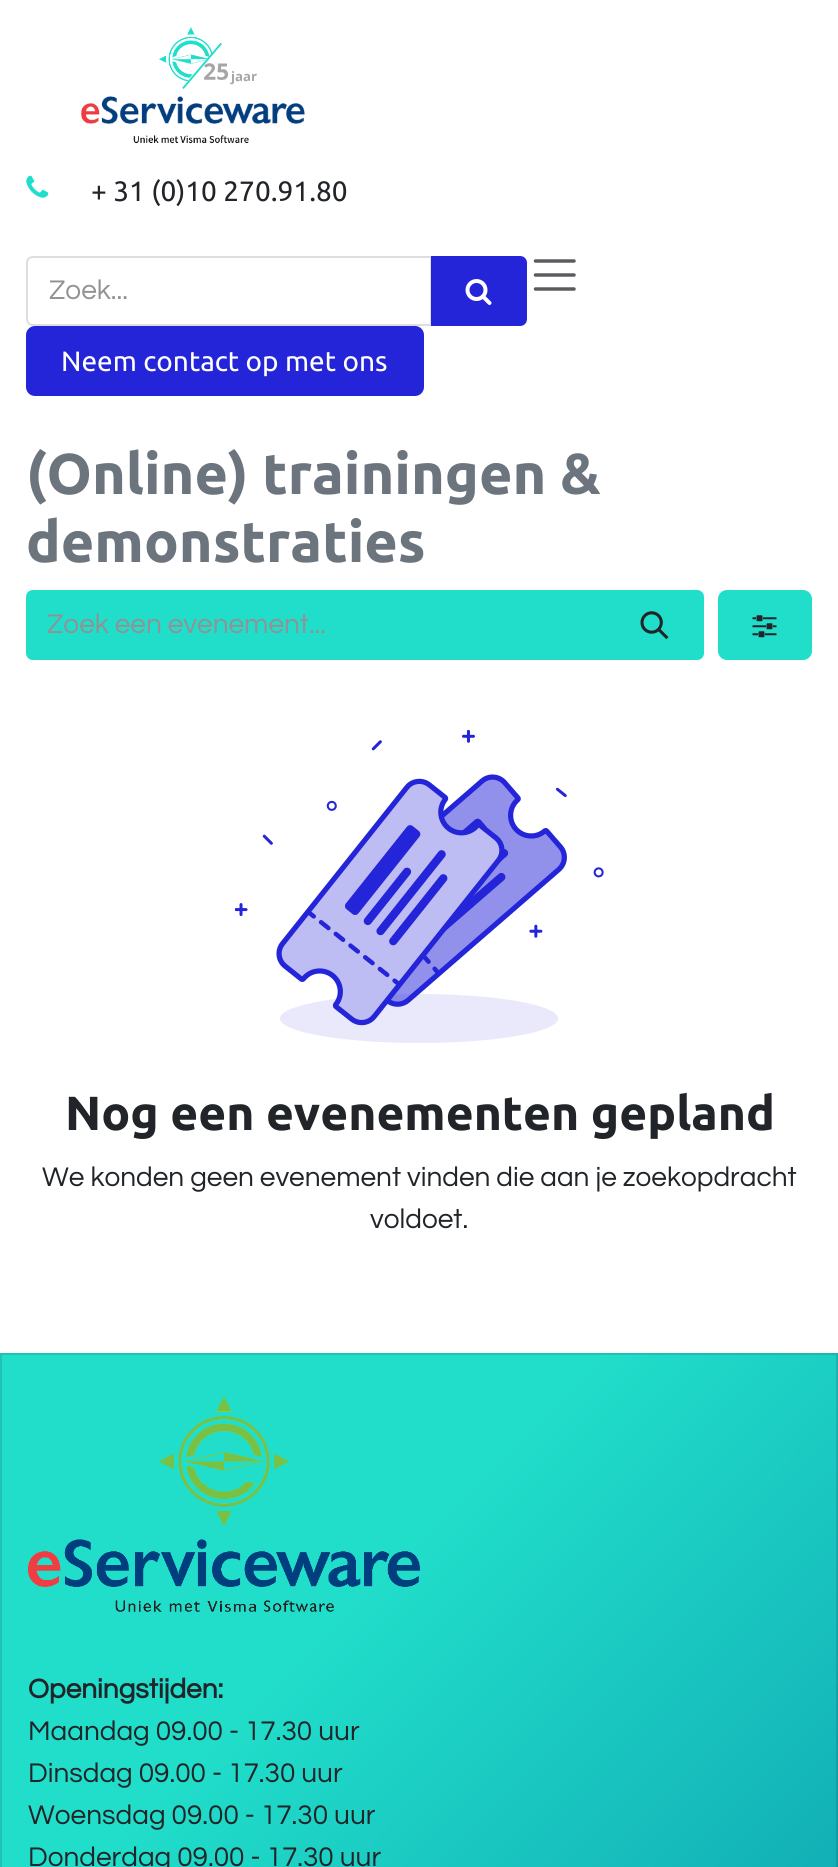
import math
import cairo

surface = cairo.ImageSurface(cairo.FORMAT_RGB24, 838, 1867)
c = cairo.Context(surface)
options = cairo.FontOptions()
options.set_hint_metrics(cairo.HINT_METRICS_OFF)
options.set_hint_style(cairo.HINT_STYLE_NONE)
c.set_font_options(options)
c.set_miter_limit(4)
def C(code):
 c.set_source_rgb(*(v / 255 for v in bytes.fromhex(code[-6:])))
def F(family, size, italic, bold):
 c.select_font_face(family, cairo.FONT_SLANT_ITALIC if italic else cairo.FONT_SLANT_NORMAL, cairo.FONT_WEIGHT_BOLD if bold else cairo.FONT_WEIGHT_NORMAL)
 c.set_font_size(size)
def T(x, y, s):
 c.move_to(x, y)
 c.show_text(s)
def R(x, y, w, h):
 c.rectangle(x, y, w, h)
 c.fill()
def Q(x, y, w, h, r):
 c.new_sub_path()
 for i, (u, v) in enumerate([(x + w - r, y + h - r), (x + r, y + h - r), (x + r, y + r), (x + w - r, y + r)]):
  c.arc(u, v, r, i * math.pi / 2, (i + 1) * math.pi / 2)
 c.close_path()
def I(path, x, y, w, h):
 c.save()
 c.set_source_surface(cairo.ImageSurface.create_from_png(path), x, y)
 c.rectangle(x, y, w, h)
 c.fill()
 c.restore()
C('ffffff')
c.paint()
I('1.png',81,27,224,117)
I('2.png',26,175,23,23)
F('Ubuntu',28,0,0)
C('212529')
T(91,201,'+ 31 (0)10 270.91.80')
c.new_path()
c.move_to(33,257)
c.line_to(431,257)
c.line_to(431,325)
c.line_to(33,325)
c.curve_to(29.5,325,27,322.5,27,319)
c.line_to(27,263)
c.curve_to(27,259.5,29.5,257,33,257)
c.close_path()
C('dededf')
c.stroke()
F('Questrial',28,0,0)
C('909294')
T(49,299,'Zoek...')
C('2424d8')
c.new_path()
c.move_to(431,256)
c.line_to(520,256)
c.curve_to(524,256,527,259,527,263)
c.line_to(527,319)
c.curve_to(527,323,524,326,520,326)
c.line_to(431,326)
c.close_path()
c.fill()
I('3.png',465,279,27,26)
Q(26,326,398,70,9)
c.fill()
F('Ubuntu',28,0,0)
C('ffffff')
T(61,371,'Neem contact op met ons')
c.new_path()
c.move_to(535.5,261)
c.line_to(574,261)
c.move_to(535.5,275)
c.line_to(574,275)
c.move_to(535.5,289)
c.line_to(574,289)
C('595c5f')
c.set_line_width(3.5)
c.set_line_cap(cairo.LINE_CAP_ROUND)
c.stroke()
F('Ubuntu',57.5,0,1)
C('6c757d')
T(26,494,'(Online) trainingen &')
T(26,562,'demonstraties')
C('21deca')
c.new_path()
c.move_to(33,590)
c.line_to(607,590)
c.line_to(607,660)
c.line_to(33,660)
c.curve_to(29,660,26,657,26,653)
c.line_to(26,597)
c.curve_to(26,593,29,590,33,590)
c.close_path()
c.fill()
F('Questrial',28,0,0)
C('909294')
T(47,633,'Zoek een evenement...')
C('21deca')
c.new_path()
c.move_to(606,590)
c.line_to(697,590)
c.curve_to(701,590,704,593,704,597)
c.line_to(704,653)
c.curve_to(704,657,701,660,697,660)
c.line_to(606,660)
c.close_path()
c.fill()
I('4.png',640,611,29,29)
Q(718,590,94,70,9)
c.fill()
I('5.png',752,615,25,23)
I('6.png',235,730,369,313)
F('Ubuntu',47.9,0,1)
C('212529')
T(65,1130,'Nog een evenementen gepland')
F('Questrial',28,0,0)
T(42,1186,'We konden geen evenement vinden die aan je zoekopdracht')
T(370,1228,'voldoet.')
gradient = cairo.LinearGradient(-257,1610,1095,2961)
gradient.add_color_stop_rgba(.22,0.129,0.871,0.792,1)
gradient.add_color_stop_rgba(.83,0,0.471,0.624,1)
c.set_source(gradient)
R(0,1353,838,514)
c.rectangle(1,1354,836,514)
c.set_source_rgba(0.129,0.145,0.161,0.15)
c.set_line_width(2)
c.set_line_cap(cairo.LINE_CAP_BUTT)
c.stroke()
I('7.png',28,1396,392,216)
F('Questrial',28,0,1)
C('212529')
T(28,1698,'Openingstijden:')
F('Questrial',28,0,0)
T(28,1740,'Maandag 09.00 - 17.30 uur')
T(28,1782,'Dinsdag 09.00 - 17.30 uur')
T(28,1824,'Woensdag 09.00 - 17.30 uur')
T(28,1866,'Donderdag 09.00 - 17.30 uur')
surface.write_to_png('o.png')
